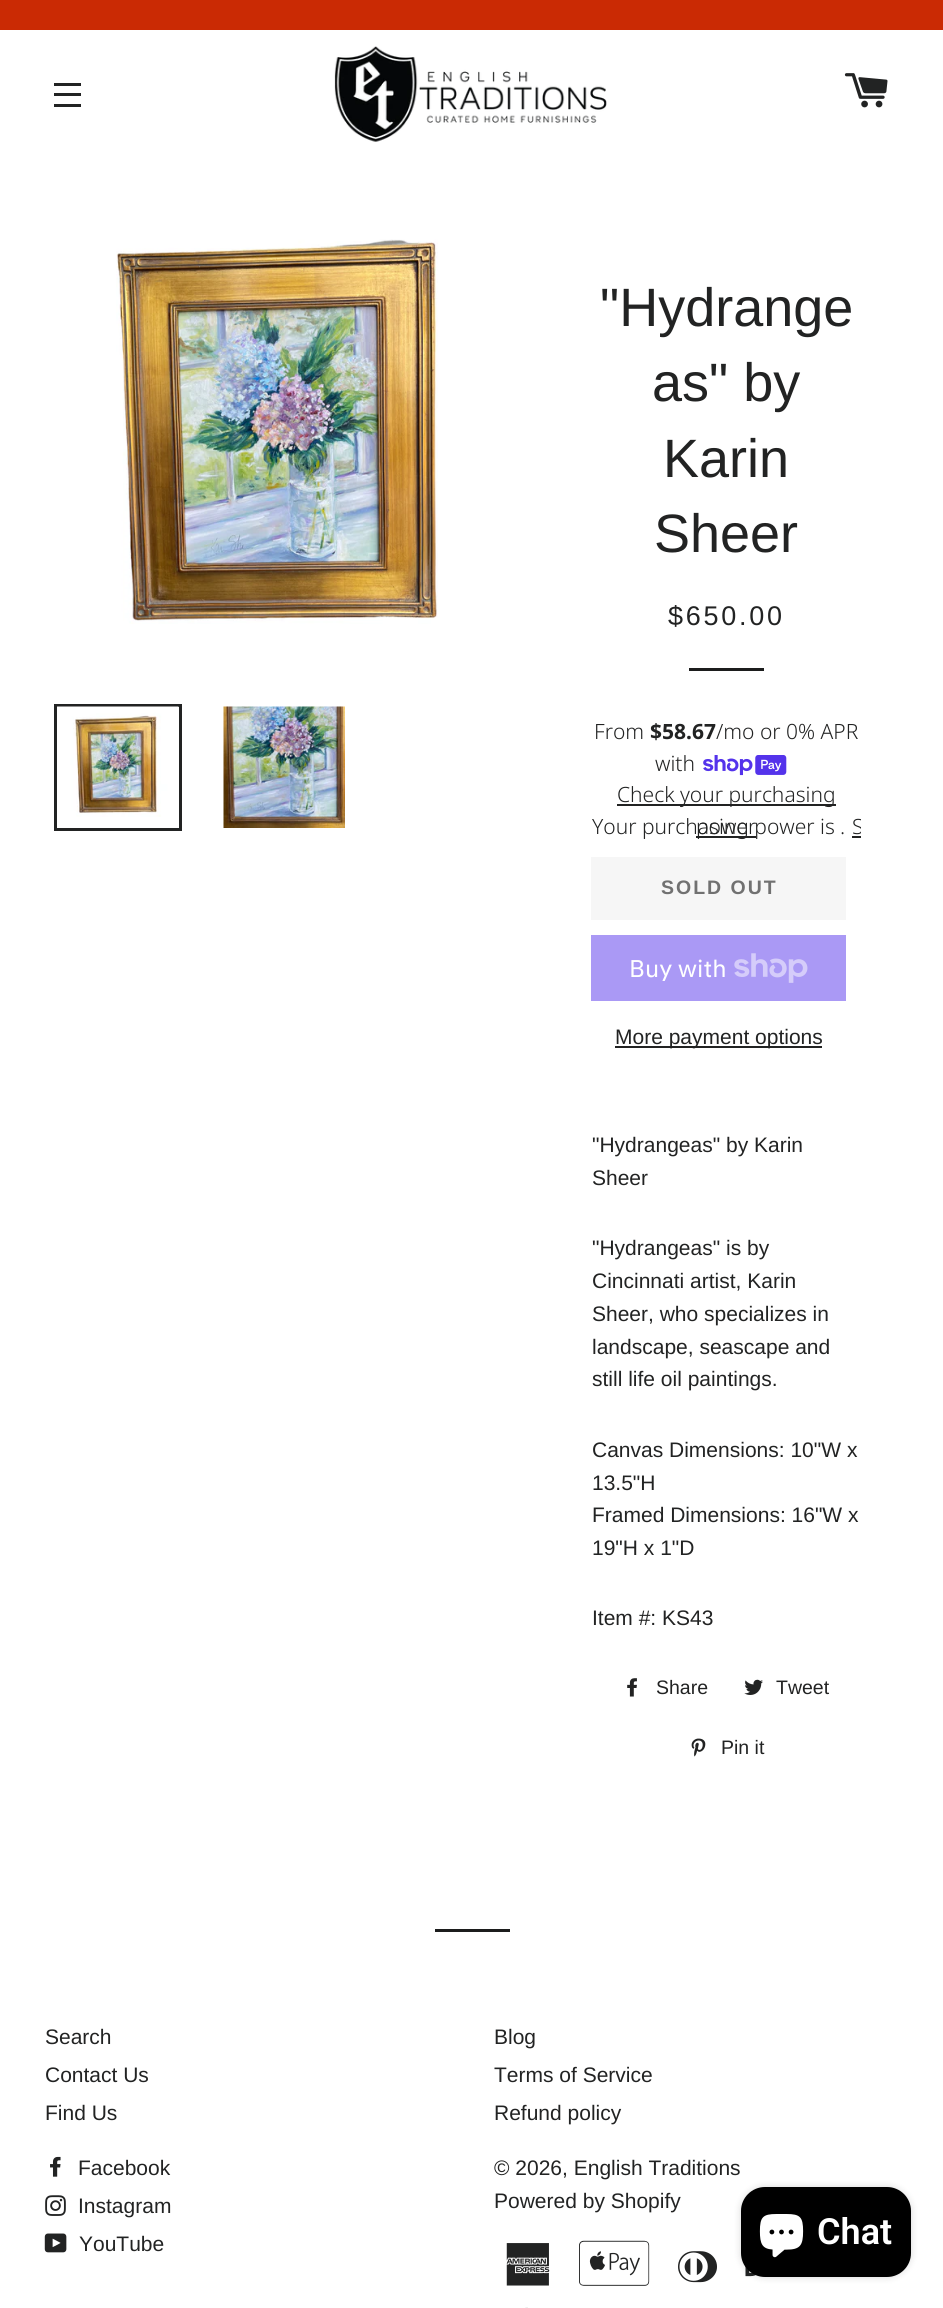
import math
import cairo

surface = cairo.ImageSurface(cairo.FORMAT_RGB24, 943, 2308)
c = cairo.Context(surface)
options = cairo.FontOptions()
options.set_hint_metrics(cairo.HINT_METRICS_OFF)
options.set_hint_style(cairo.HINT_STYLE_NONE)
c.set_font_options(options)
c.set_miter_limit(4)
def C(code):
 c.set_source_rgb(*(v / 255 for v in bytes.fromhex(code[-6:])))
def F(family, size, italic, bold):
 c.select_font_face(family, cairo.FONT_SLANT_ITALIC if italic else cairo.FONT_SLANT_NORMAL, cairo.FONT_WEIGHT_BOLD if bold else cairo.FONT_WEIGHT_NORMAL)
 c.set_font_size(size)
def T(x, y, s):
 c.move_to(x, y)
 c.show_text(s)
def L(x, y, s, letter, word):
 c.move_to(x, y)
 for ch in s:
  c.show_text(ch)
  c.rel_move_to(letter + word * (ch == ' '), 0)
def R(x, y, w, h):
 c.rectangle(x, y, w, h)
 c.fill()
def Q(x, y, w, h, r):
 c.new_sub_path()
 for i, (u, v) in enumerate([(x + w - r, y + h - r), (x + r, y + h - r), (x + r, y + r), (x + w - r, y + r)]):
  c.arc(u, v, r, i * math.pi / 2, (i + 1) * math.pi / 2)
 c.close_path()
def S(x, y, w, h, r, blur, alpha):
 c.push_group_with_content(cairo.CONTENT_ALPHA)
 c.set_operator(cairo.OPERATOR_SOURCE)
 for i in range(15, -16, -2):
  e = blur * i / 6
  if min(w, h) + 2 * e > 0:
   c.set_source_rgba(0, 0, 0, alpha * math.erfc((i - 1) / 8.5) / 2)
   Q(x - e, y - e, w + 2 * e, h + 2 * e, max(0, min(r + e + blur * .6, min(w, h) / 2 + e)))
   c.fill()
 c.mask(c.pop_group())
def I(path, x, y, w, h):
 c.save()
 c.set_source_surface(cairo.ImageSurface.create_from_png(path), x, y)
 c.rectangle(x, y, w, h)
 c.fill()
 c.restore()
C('ffffff')
c.paint()
C('ca2a04')
R(0,0,943,30)
C('222323')
R(54,83,27,3)
R(54,93,27,3)
R(54,104,27,3)
I('1.png',334,46,273,96)
I('2.png',844,73,44,35)
I('3.png',116,239,322,385)
c.rectangle(55.5,705.5,125,124)
c.set_line_width(3)
c.stroke()
I('4.png',57,706,122,111)
I('5.png',223,706,122,122)
F('Liberation Sans',54,0,0)
T(600,326,'"Hydrange')
T(652,401,'as" by')
T(663,477,'Karin')
T(654,552,'Sheer')
F('Liberation Sans',27,0,0)
L(668,625,'$650.00',2.75,0)
C('1c1d1d')
R(689,668,75,3)
F('Noto Sans Light',21,0,0)
C('222323')
T(594,739,'From')
F('Noto Sans',21,0,1)
T(650,739,'$58.67')
F('Noto Sans Light',21,0,0)
T(716,739,'/mo or 0% APR')
T(655,771,'with')
I('6.png',703,755,84,21)
R(617,804,219,2)
T(617,802,'Check your purchasing')
R(696,836,60,2)
T(696,834,'power')
T(592,834,'Your purchasing power is')
T(840,834,'.')
c.save()
c.rectangle(591,779,270,63)
c.clip()
T(852,834,'S')
c.restore()
R(852,836,9,2)
C('f6f6f6')
R(591,857,255,63)
F('Liberation Sans',19.5,0,1)
C('717171')
L(661,894,'SOLD OUT',2,0)
C('aa99f5')
R(591,935,255,66)
F('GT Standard',24,0,0)
C('ffffff')
T(629,977,'Buy with')
I('7.png',734,953,74,30)
C('222323')
R(615,1046,207,2)
F('Liberation Sans',21,0,0)
T(615,1044,'More payment options')
T(592,1152,'"Hydrangeas" by Karin')
T(592,1185,'Sheer')
T(592,1255,'"Hydrangeas" is by')
T(592,1288,'Cincinnati artist, Karin')
T(592,1321,'Sheer, who specializes in')
T(592,1354,'landscape, seascape and')
T(592,1386,'still life oil paintings.')
T(592,1457,'Canvas Dimensions: 10"W x')
T(592,1490,'13.5"H')
T(592,1522,'Framed Dimensions: 16"W x')
T(592,1555,'19"H x 1"D')
T(592,1625,'Item #: KS43')
I('8.png',627,1678,10,19)
F('Liberation Sans',19.5,0,0)
T(656,1694,'Share')
I('9.png',744,1679,19,16)
T(776,1694,'Tweet')
I('10.png',691,1738,15,19)
T(721,1754,'Pin it')
C('1c1d1d')
R(435,1929,75,3)
F('Liberation Sans',21,0,0)
C('222323')
T(45,2044,'Search')
T(45,2082,'Contact Us')
T(45,2120,'Find Us')
T(494,2044,'Blog')
T(494,2082,'Terms of Service')
T(494,2120,'Refund policy')
I('11.png',50,2156,11,21)
T(78,2175,'Facebook')
I('12.png',45,2195,21,21)
T(78,2213,'Instagram')
I('13.png',44,2233,23,20)
T(79,2251,'YouTube')
T(494,2175,'© 2026, English Traditions')
T(494,2208,'Powered by Shopify')
I('14.png',506,2243,44,43)
I('15.png',579,2240,71,46)
I('16.png',678,2251,39,32)
I('17.png',745,2266,20,11)
I('18.png',525,2307,3,1)
C('000000')
S(741,2187,170,90,24,4,.15)
C('000000')
Q(741,2187,170,90,24)
c.fill()
I('19.png',759,2214,45,44)
F('Roboto SemiBold',36,0,0)
C('ffffff')
T(817,2244,'Chat')
surface.write_to_png('o.png')
